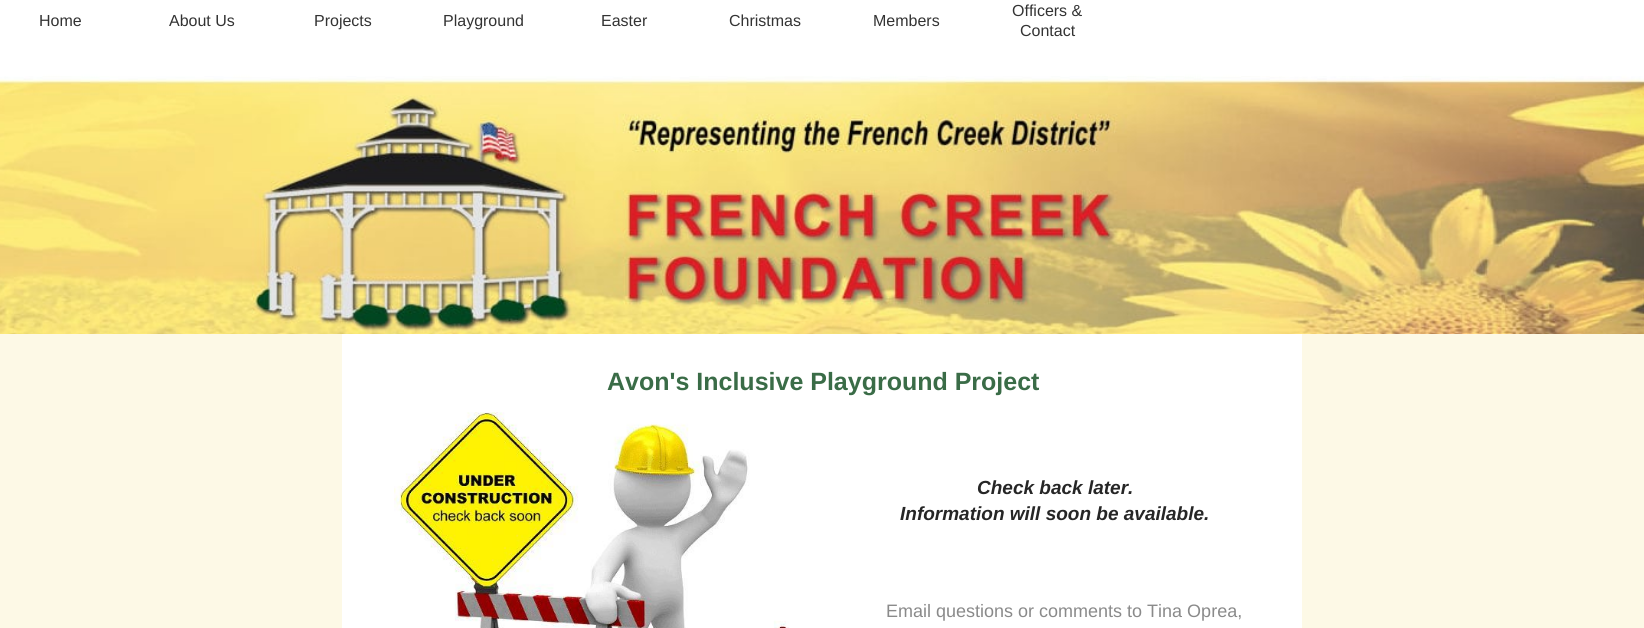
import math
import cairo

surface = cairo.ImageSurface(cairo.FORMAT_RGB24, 1644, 628)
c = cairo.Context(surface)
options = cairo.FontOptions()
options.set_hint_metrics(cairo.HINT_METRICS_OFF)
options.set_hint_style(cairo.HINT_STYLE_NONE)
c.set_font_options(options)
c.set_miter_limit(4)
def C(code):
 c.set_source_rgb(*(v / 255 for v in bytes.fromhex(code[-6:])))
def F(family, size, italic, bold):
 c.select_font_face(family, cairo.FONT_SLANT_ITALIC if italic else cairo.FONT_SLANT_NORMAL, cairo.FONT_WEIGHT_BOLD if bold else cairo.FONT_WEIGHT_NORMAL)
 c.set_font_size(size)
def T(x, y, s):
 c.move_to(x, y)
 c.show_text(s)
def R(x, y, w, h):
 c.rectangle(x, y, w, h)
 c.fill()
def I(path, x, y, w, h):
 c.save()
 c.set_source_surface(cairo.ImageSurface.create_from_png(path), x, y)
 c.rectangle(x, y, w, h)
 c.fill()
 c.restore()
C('fdf9e6')
c.paint()
I('1.png',0,0,1644,334)
F('Liberation Sans',16,0,0)
C('333333')
T(39,26,'Home')
T(169,26,'About Us')
T(314,26,'Projects')
T(443,26,'Playground')
T(601,26,'Easter')
T(729,26,'Christmas')
T(873,26,'Members')
T(1012,16,'Officers &')
T(1020,36,'Contact')
C('ffffff')
R(342,334,960,294)
F('Liberation Sans',25,0,1)
C('3a6c47')
T(607,390,'Avon\'s Inclusive Playground Project')
I('2.png',394,412,395,216)
F('Liberation Sans',19,1,1)
C('262626')
T(977,494,'Check back later.')
T(900,520,'Information will soon be available.')
F('Liberation Sans',18,0,0)
C('8a8a8a')
T(886,617,'Email questions or comments to Tina Oprea,')
surface.write_to_png('o.png')
